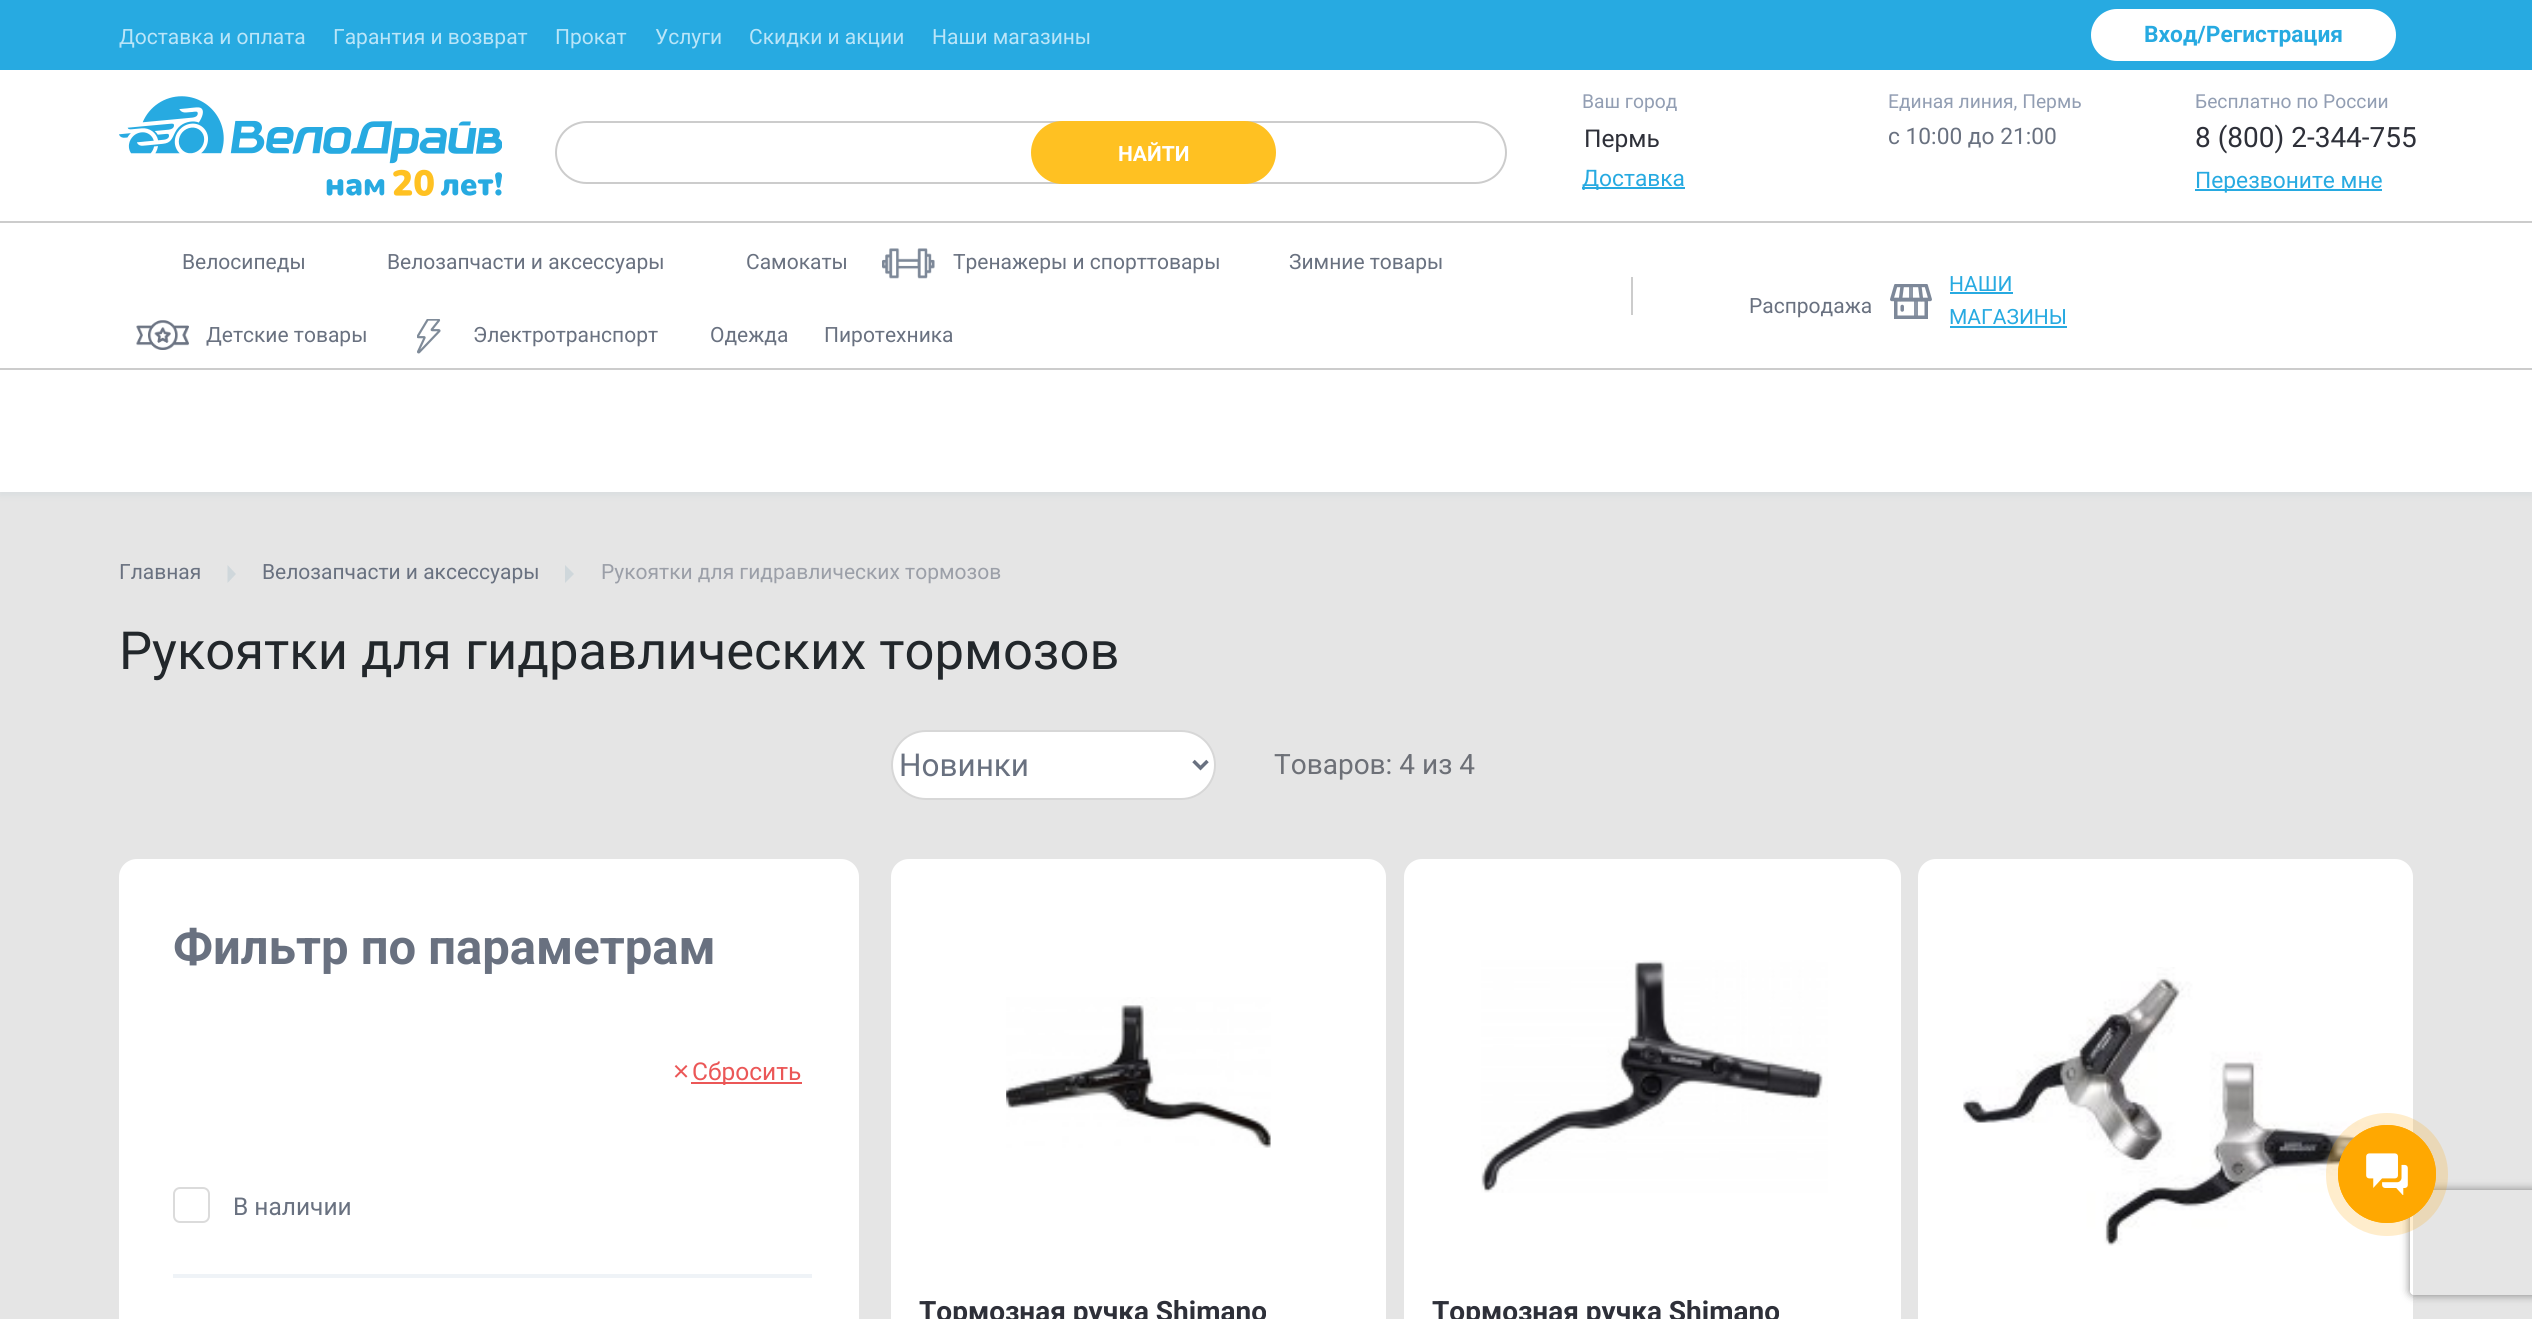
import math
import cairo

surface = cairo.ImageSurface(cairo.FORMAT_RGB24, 2532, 1319)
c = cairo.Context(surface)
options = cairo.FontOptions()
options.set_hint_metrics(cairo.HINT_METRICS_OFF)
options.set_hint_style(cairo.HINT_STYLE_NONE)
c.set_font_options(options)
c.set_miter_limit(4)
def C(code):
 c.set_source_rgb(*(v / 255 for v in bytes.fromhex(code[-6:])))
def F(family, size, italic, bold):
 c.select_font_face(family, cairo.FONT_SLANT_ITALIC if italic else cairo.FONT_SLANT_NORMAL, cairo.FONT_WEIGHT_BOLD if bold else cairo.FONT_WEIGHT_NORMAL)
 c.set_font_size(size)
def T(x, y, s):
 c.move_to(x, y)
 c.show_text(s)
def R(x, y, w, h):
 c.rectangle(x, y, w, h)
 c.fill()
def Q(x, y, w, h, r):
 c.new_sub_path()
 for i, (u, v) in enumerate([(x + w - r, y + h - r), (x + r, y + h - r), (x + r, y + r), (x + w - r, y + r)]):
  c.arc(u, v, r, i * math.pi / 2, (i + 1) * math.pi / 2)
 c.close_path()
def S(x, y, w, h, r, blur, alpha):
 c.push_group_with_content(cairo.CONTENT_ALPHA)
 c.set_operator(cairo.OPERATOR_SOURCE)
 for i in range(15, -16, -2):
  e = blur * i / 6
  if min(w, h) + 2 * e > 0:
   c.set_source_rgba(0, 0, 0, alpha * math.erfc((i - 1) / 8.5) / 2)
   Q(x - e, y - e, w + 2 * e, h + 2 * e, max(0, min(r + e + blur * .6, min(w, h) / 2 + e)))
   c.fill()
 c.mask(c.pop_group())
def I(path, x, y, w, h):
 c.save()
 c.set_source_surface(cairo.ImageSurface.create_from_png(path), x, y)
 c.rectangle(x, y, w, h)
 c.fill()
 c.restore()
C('e5e5e5')
c.paint()
C('bacad2')
S(0,4,2532,491,0,3.5,.3)
C('ffffff')
R(0,70,2532,422)
C('27aae1')
R(0,0,2532,70)
F('Roboto',21,0,0)
C('bae5f8')
T(119,44,'Доставка и оплата')
T(333,44,'Гарантия и возврат')
T(555,44,'Прокат')
T(655,44,'Услуги')
T(749,44,'Скидки и акции')
T(932,44,'Наши магазины')
C('ffffff')
Q(2091,9,305,52,26)
c.fill()
F('Roboto',22.75,0,1)
C('27aae1')
T(2144,42,'Вход/Регистрация')
I('1.png',119,96,383,100)
Q(556,122,950,61,30.5)
C('cccccc')
c.stroke()
C('ffc122')
Q(1032,122,243,61,30.5)
c.fill_preserve()
c.stroke()
F('Roboto',21,0,1)
C('ffffff')
T(1118,161,'НАЙТИ')
F('Roboto',19.25,0,0)
C('929eb3')
T(1582,108,'Ваш город')
F('Roboto',24.5,0,0)
C('2e3039')
T(1584,147,'Пермь')
C('27aae1')
R(1582,187,103,2)
F('Roboto',22.75,0,0)
T(1582,186,'Доставка')
F('Roboto',19.25,0,0)
C('929eb3')
T(1888,108,'Единая линия, Пермь')
F('Roboto',22.75,0,0)
C('697180')
T(1888,144,'с 10:00 до 21:00')
F('Roboto',19.25,0,0)
C('929eb3')
T(2195,108,'Бесплатно по России')
F('Roboto',28,0,0)
C('2e3039')
T(2195,147,'8 (800) 2-344-755')
C('27aae1')
R(2195,189,187,2)
F('Roboto',22.75,0,0)
T(2195,188,'Перезвоните мне')
C('cccccc')
R(0,221,2532,2)
F('Roboto',21,0,0)
C('697180')
T(182,269,'Велосипеды')
T(387,269,'Велозапчасти и аксессуары')
T(746,269,'Самокаты')
I('2.png',882,248,53,31)
T(953,269,'Тренажеры и спорттовары')
T(1289,269,'Зимние товары')
I('3.png',136,320,53,30)
T(206,342,'Детские товары')
I('4.png',417,319,24,35)
T(473,342,'Электротранспорт')
T(710,342,'Одежда')
T(824,342,'Пиротехника')
C('cccccc')
R(1631,277,2,38)
C('697180')
T(1749,313,'Распродажа')
I('5.png',1890,284,42,35)
C('27aae1')
T(1949,291,'НАШИ')
R(1950,292,63,2)
T(1949,324,'МАГАЗИНЫ')
R(1950,326,117,2)
C('cccccc')
R(0,368,2532,2)
C('697180')
T(119,579,'Главная')
C('cfd7db')
c.new_path()
c.move_to(227.5,583)
c.line_to(227.5,565)
c.line_to(236,574)
c.close_path()
c.fill()
C('697180')
T(262,579,'Велозапчасти и аксессуары')
C('cfd7db')
c.new_path()
c.move_to(565,583)
c.line_to(565,565)
c.line_to(574,574)
c.close_path()
c.fill()
C('9b9fa8')
T(601,579,'Рукоятки для гидравлических тормозов')
F('Roboto',52.5,0,0)
C('22272b')
T(119,669,'Рукоятки для гидравлических тормозов')
C('ffffff')
Q(119,859,740,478,18)
c.fill()
F('Roboto',49,0,1)
C('697180')
T(173,964,'Фильтр по параметрам')
I('6.png',674,1065,14,13)
C('eb5757')
R(691,1082,111,2)
F('Roboto',24.5,0,0)
T(692,1080,'Сбросить')
C('eff3f7')
R(173,1274,639,4)
Q(174,1188,35,34,6)
C('dbdbdb')
c.stroke()
C('697180')
T(233,1215,'В наличии')
C('ffffff')
Q(892,731,323,68,34)
c.fill_preserve()
C('d7d7d7')
c.stroke()
c.new_path()
c.move_to(1193.5,761)
c.line_to(1200.5,768)
c.line_to(1207.5,761)
C('697180')
c.set_line_width(3.5)
c.stroke()
F('Roboto',31.5,0,0)
T(899,776,'Новинки')
F('Roboto',28,0,0)
C('6d7077')
T(1274,774,'Товаров: 4 из 4')
C('ffffff')
Q(891,859,495,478,18)
c.fill()
I('7.png',1006,997,265,151)
F('Roboto',28,0,1)
C('2e3039')
T(919,1321,'Тормозная ручка Shimano')
C('ffffff')
Q(1404,859,497,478,18)
c.fill()
I('8.png',1481,960,347,233)
C('2e3039')
T(1432,1321,'Тормозная ручка Shimano')
C('ffffff')
Q(1918,859,495,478,18)
c.fill()
I('9.png',1963,967,422,279)
c.save()
c.set_fill_rule(cairo.FILL_RULE_EVEN_ODD)
c.new_path()
c.move_to(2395,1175)
c.line_to(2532,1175)
c.line_to(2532,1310)
c.line_to(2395,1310)
c.close_path()
c.move_to(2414,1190)
c.line_to(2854,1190)
c.curve_to(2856,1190,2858,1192,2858,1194)
c.line_to(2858,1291)
c.curve_to(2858,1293,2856,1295,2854,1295)
c.line_to(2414,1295)
c.curve_to(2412,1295,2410,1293,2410,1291)
c.line_to(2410,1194)
c.curve_to(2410,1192,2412,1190,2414,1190)
c.close_path()
c.clip()
C('808080')
S(2410,1190,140,105,4,4.5,1)
c.restore()
c.set_source_rgba(1,0.659,0.004,0.2)
Q(2326,1113,122,123,61)
c.fill()
c.arc(2387,1174,48.5,0,2 * math.pi)
C('ffa801')
c.set_line_width(1)
c.stroke()
c.arc(2387,1174,49,0,2 * math.pi)
c.fill()
I('10.png',2366,1153,42,42)
surface.write_to_png('o.png')
